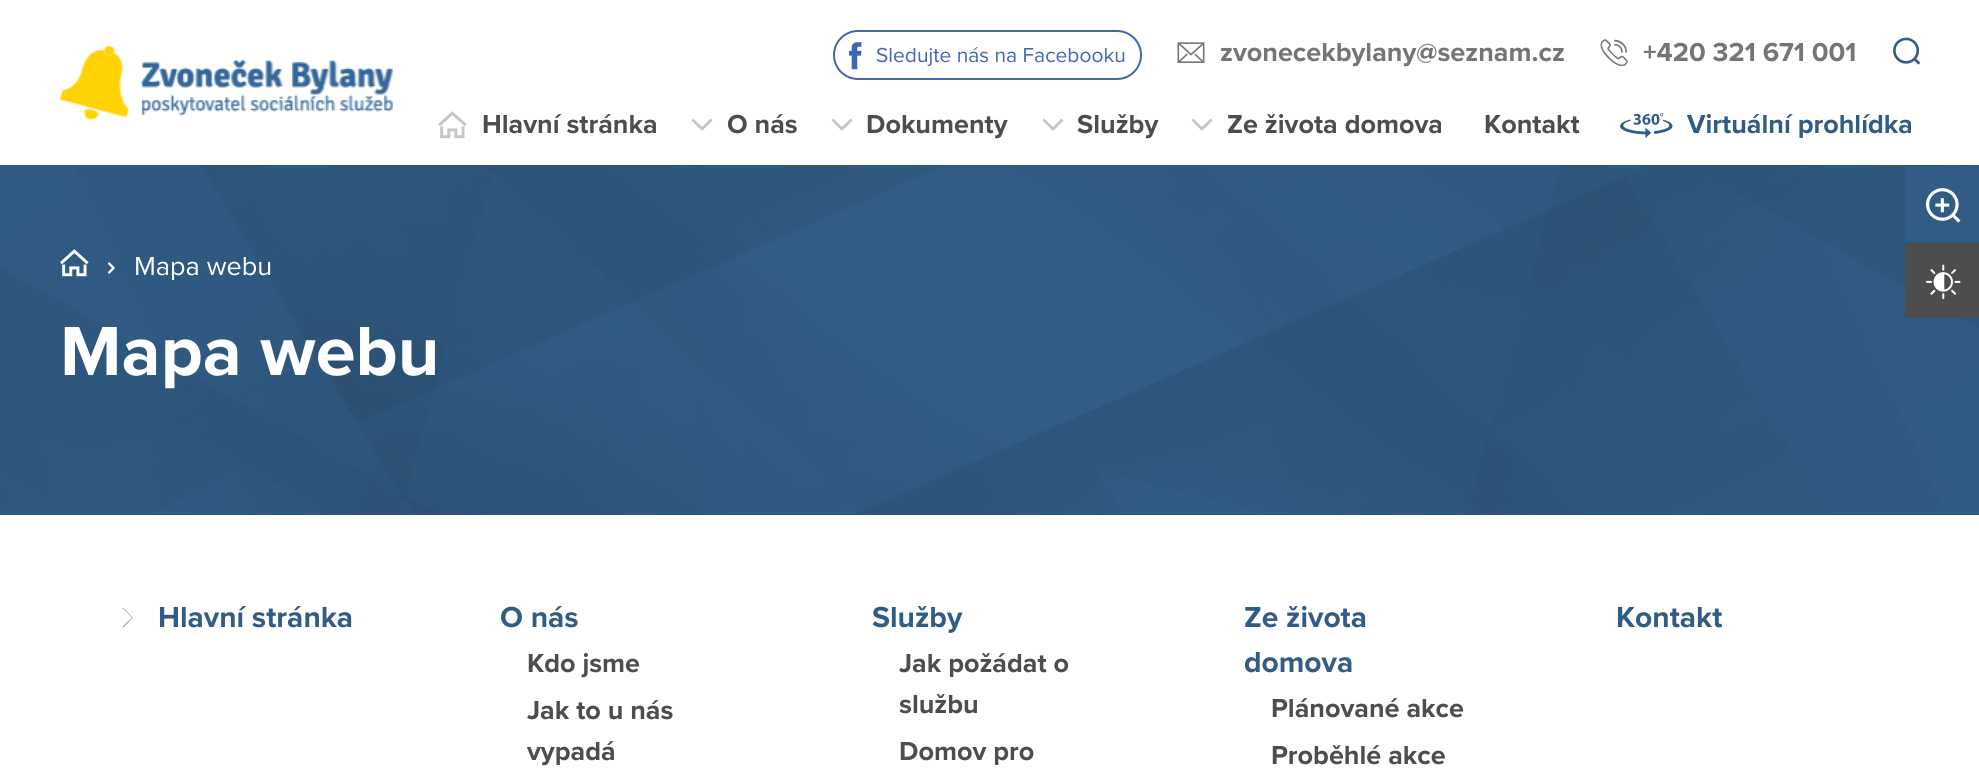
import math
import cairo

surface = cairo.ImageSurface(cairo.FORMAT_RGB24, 1979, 777)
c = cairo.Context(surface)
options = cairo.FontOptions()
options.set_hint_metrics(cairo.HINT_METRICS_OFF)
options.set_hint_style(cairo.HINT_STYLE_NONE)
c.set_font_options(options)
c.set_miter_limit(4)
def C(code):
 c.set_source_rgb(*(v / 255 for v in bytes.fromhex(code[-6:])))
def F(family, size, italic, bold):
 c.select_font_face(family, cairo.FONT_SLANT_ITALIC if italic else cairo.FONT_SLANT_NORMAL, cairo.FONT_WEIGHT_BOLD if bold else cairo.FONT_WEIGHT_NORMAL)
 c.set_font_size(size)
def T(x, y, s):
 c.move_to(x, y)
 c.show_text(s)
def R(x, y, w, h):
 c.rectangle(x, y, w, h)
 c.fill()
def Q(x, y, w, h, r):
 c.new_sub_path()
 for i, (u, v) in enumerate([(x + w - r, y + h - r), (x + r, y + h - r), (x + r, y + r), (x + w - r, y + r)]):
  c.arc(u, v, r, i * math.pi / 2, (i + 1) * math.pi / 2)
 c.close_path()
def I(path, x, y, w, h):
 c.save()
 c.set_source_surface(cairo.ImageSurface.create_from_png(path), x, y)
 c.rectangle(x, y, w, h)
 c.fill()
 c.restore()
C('ffffff')
c.paint()
I('1.png',60,45,333,75)
Q(834,31,307,48,24)
C('4267b2')
c.stroke()
I('2.png',849,42,13,28)
F('Proxima Nova',21,0,0)
T(876,62,'Sledujte nás na Facebooku')
I('3.png',1177,42,28,21)
F('Proxima Nova',27,0,1)
C('757575')
T(1220,61,'zvonecekbylany@seznam.cz')
I('4.png',1600,39,28,28)
T(1643,61,'+420 321 671 001')
I('5.png',1893,37,28,28)
I('6.png',438,111,29,28)
C('4d4d4d')
T(482,133,'Hlavní stránka')
C('c6c6c6')
c.new_path()
c.move_to(702,131)
c.line_to(712.5,120.5)
c.line_to(710.5,118.5)
c.line_to(702,127)
c.line_to(693,118.5)
c.line_to(691.5,120.5)
c.close_path()
c.fill()
C('4d4d4d')
T(727,133,'O nás')
C('c6c6c6')
c.new_path()
c.move_to(842,131)
c.line_to(852.5,120.5)
c.line_to(850.5,118.5)
c.line_to(842,127)
c.line_to(833,118.5)
c.line_to(831.5,120.5)
c.close_path()
c.fill()
C('4d4d4d')
T(866,133,'Dokumenty')
C('c6c6c6')
c.new_path()
c.move_to(1053,131)
c.line_to(1063.5,120.5)
c.line_to(1061.5,118.5)
c.line_to(1053,127)
c.line_to(1044,118.5)
c.line_to(1042.5,120.5)
c.close_path()
c.fill()
C('4d4d4d')
T(1077,133,'Služby')
C('c6c6c6')
c.new_path()
c.move_to(1202,131)
c.line_to(1212.5,120.5)
c.line_to(1210.5,118.5)
c.line_to(1202,127)
c.line_to(1193,118.5)
c.line_to(1191.5,120.5)
c.close_path()
c.fill()
C('4d4d4d')
T(1227,133,'Ze života domova')
T(1484,133,'Kontakt')
I('7.png',1620,113,53,25)
C('315c85')
T(1687,133,'Virtuální prohlídka')
R(0,165,1979,350)
I('8.png',0,165,1979,350)
I('9.png',60,249,29,28)
I('10.png',108,262,7,12)
F('Proxima Nova',27,0,0)
C('ffffff')
T(134,275,'Mapa webu')
F('Proxima Nova',72,0,1)
T(60,375,'Mapa webu')
C('315c85')
c.new_path()
c.move_to(123,608)
c.line_to(132.5,617.5)
c.line_to(123,627.5)
c.line_to(122.5,627)
c.line_to(132,617.5)
c.line_to(122.5,608)
c.close_path()
c.fill()
F('Proxima Nova',30,0,1)
T(158,627,'Hlavní stránka')
T(500,627,'O nás')
F('Proxima Nova',27,0,1)
C('4d4d4d')
T(527,672,'Kdo jsme')
T(527,719,'Jak to u nás')
T(527,760,'vypadá')
F('Proxima Nova',30,0,1)
C('315c85')
T(872,627,'Služby')
F('Proxima Nova',27,0,1)
C('4d4d4d')
T(899,672,'Jak požádat o')
T(899,713,'službu')
T(899,760,'Domov pro')
F('Proxima Nova',30,0,1)
C('315c85')
T(1244,627,'Ze života')
T(1244,672,'domova')
F('Proxima Nova',27,0,1)
C('4d4d4d')
T(1271,717,'Plánované akce')
T(1271,764,'Proběhlé akce')
F('Proxima Nova',30,0,1)
C('315c85')
T(1616,627,'Kontakt')
R(1905,167,74,75)
I('11.png',1926,188,35,35)
C('4d4d4d')
R(1905,243,74,75)
I('12.png',1926,264,35,36)
surface.write_to_png('o.png')
